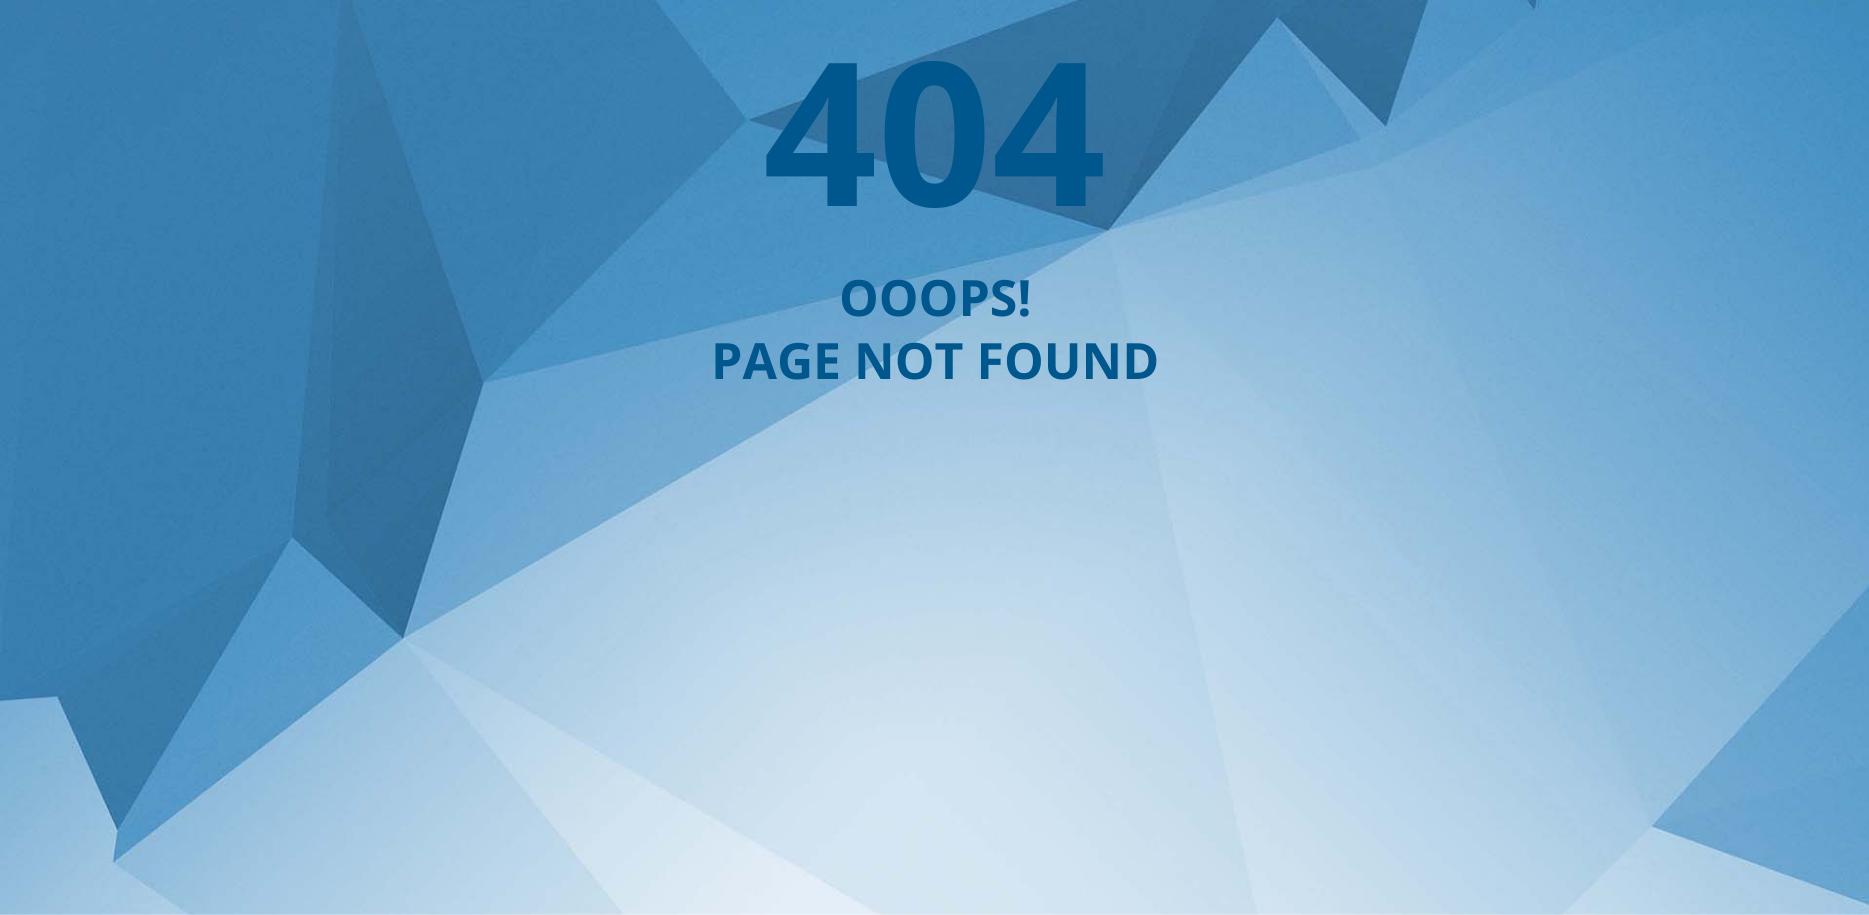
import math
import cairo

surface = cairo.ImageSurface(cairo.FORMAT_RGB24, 1869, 915)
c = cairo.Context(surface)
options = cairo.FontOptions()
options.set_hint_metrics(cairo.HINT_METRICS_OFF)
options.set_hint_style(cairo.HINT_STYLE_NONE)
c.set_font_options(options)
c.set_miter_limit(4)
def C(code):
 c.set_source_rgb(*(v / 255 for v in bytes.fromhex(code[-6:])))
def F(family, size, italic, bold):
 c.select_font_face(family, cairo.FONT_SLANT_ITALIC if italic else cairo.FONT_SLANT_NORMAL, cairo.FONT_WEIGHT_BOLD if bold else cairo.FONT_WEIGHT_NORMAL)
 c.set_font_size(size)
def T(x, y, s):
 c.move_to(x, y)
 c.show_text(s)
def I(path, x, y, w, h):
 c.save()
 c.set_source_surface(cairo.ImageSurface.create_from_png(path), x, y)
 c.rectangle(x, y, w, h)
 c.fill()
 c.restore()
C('ffffff')
c.paint()
I('1.png',0,0,1869,915)
F('Noto Sans Thai',200,0,1)
C('00578e')
T(763,206,'404')
F('Noto Sans Thai',50,0,1)
T(839,316,'OOOPS!')
T(711,379,'PAGE NOT FOUND')
surface.write_to_png('o.png')
